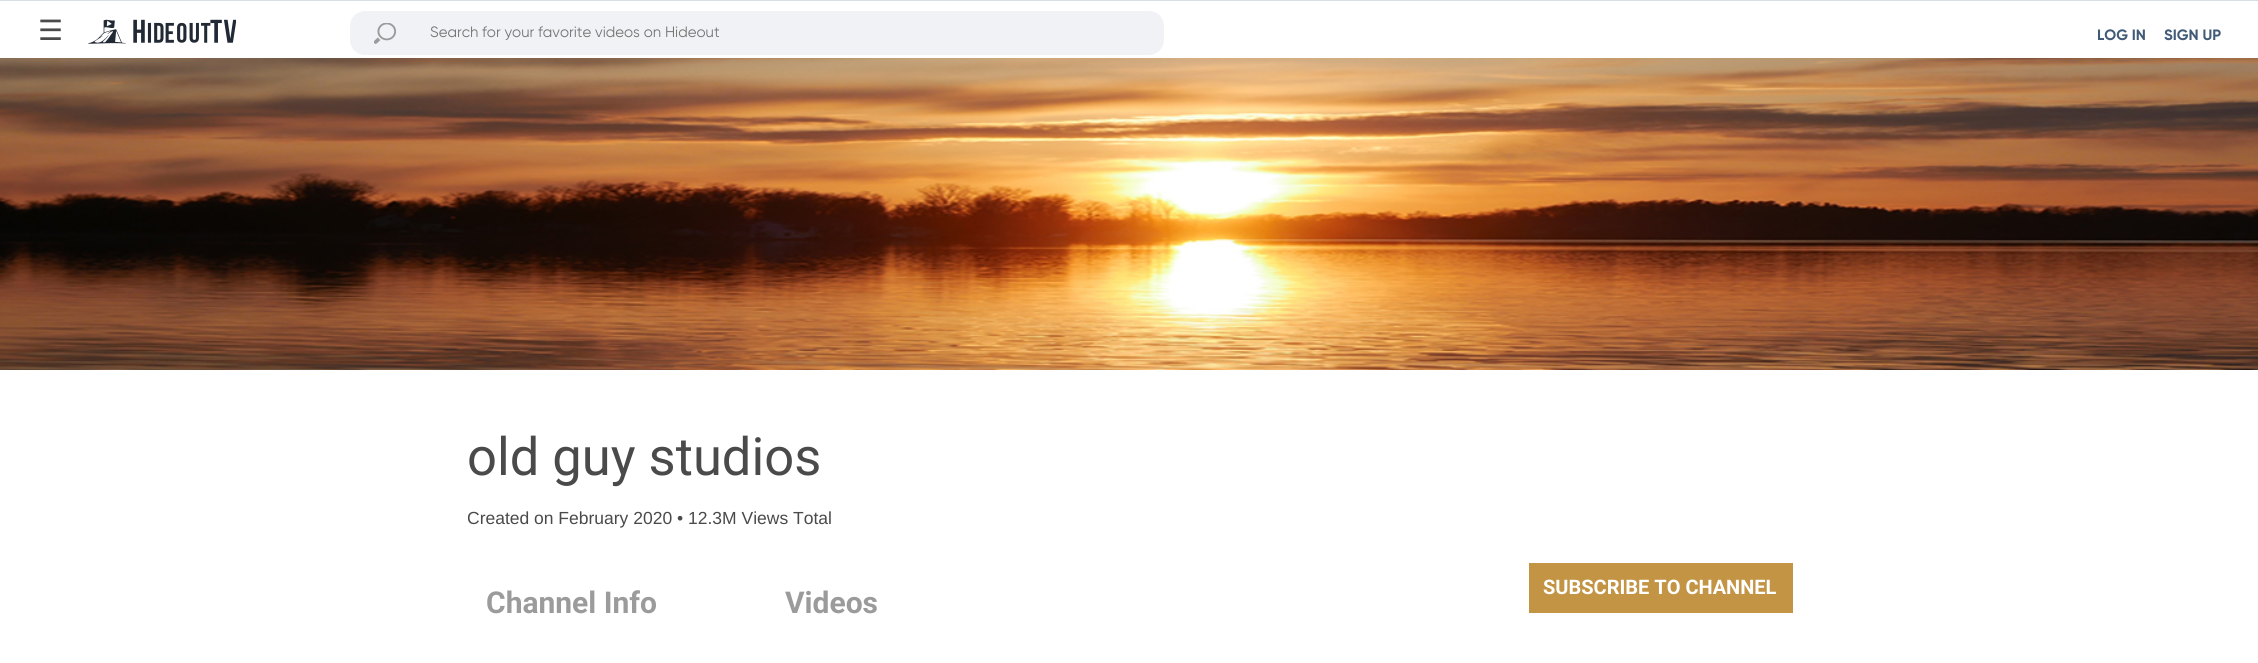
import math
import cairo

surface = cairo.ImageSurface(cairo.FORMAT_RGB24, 2258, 663)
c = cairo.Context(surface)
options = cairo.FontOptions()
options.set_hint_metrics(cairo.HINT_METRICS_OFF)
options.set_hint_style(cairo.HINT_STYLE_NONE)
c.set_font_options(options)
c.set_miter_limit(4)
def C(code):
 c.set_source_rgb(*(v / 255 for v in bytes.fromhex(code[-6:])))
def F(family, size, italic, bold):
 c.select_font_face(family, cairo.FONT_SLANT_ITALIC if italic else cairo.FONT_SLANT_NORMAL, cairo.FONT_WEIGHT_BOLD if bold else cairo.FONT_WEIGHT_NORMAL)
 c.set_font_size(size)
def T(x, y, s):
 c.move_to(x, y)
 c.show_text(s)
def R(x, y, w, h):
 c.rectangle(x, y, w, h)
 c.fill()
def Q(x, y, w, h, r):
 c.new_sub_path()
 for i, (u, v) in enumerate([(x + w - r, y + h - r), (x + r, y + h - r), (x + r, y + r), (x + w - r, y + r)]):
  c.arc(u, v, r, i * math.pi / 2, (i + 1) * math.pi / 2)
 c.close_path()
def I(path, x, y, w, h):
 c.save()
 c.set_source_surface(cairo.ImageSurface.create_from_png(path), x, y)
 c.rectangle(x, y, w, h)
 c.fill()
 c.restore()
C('ffffff')
c.paint()
C('d7dfe4')
R(0,0,2258,1)
F('DejaVu Sans',28,0,0)
C('4a4a4a')
T(38,40,'☰')
I('1.png',88,19,148,25)
C('f0f2f5')
Q(350,11,814,44,15)
c.fill()
I('2.png',374,23,22,21)
F('Gilroy',15,0,0)
C('757575')
T(430,37,'Search for your favorite videos on Hideout')
F('Gilroy',15,0,1)
C('415b76')
T(2097,40,'LOG IN')
T(2164,40,'SIGN UP')
I('3.png',0,58,2258,312)
F('Roboto',52.5,0,0)
C('4a4a4a')
T(467,475,'old guy studios')
c.save()
c.rectangle(468,370,1325,189)
c.clip()
F('Liberation Sans',17.5,0,0)
T(467,524,'Created')
c.restore()
F('Liberation Sans',17.5,0,0)
T(534,524,'on February 2020 • 12.3M Views Total')
C('c29444')
R(1529,563,264,50)
F('Roboto',20,0,1)
C('ffffff')
T(1543,594,'SUBSCRIBE TO CHANNEL')
F('Roboto',30,0,1)
C('9b9b9b')
T(486,613,'Channel Info')
T(785,613,'Videos')
surface.write_to_png('o.png')
